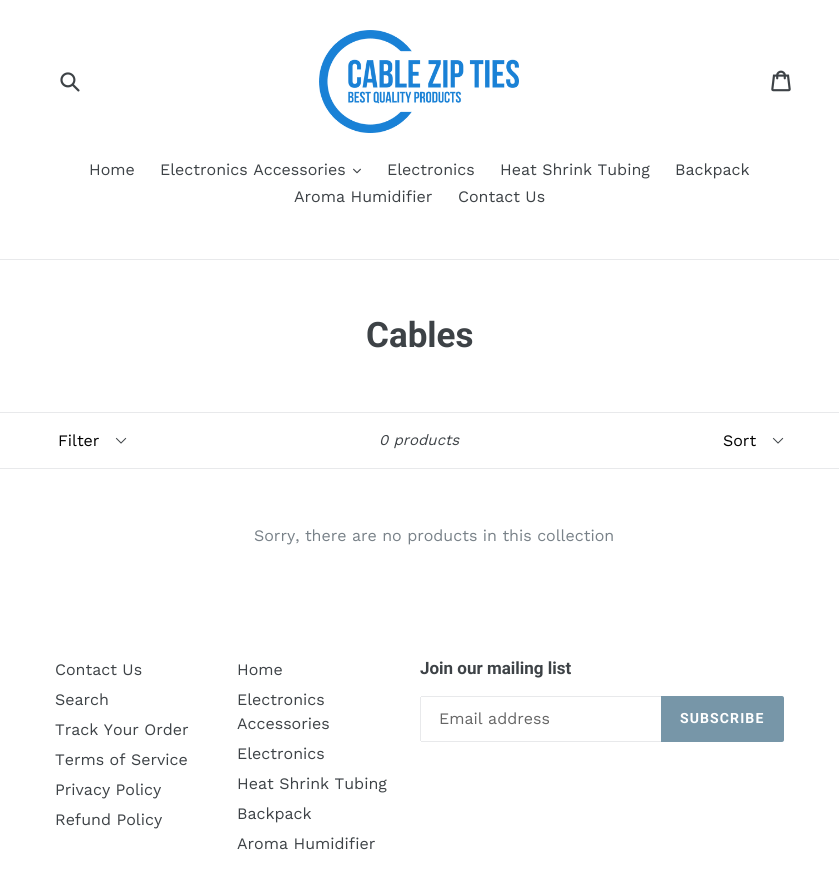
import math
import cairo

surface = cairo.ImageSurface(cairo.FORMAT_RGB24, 839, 872)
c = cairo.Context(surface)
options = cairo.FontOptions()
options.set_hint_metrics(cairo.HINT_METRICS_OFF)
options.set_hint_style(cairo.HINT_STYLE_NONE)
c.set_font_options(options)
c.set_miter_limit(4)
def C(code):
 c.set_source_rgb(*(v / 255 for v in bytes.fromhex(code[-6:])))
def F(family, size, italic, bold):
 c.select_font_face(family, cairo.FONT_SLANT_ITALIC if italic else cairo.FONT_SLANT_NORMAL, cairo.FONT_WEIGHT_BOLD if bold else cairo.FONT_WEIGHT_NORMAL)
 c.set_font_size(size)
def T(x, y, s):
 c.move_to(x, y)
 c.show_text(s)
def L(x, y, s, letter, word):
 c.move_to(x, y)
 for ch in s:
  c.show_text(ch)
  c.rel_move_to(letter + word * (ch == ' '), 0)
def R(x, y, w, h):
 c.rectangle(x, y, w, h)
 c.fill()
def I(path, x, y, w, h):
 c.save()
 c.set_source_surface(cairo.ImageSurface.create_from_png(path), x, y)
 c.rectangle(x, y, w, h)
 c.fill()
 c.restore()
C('ffffff')
c.paint()
I('1.png',60,72,20,20)
I('2.png',319,30,200,103)
I('3.png',771,70,20,22)
C('e8e9eb')
R(0,259,839,1)
F('Work Sans',16,0,0)
C('3d4246')
T(89,175,'Home')
T(160,175,'Electronics Accessories')
I('4.png',353,168,8,6)
T(387,175,'Electronics')
T(500,175,'Heat Shrink Tubing')
T(675,175,'Backpack')
T(294,202,'Aroma Humidifier')
T(458,202,'Contact Us')
F('Roboto',35,0,1)
T(366,347,'Cables')
C('e8e9eb')
R(0,412,839,1)
R(0,468,839,1)
I('5.png',115,437,12,7)
F('Work Sans',16,0,0)
C('000000')
T(58,446,'Filter')
F('Work Sans',15,1,0)
C('3d4246')
T(379,445,'0 products')
I('5.png',772,437,12,7)
F('Work Sans',16,0,0)
C('000000')
T(723,446,'Sort')
C('788188')
T(254,541,'Sorry, there are no products in this collection')
C('3d4246')
T(55,675,'Contact Us')
T(55,705,'Search')
T(55,735,'Track Your Order')
T(55,765,'Terms of Service')
T(55,795,'Privacy Policy')
T(55,825,'Refund Policy')
T(237,675,'Home')
T(237,705,'Electronics')
T(237,729,'Accessories')
T(237,759,'Electronics')
T(237,789,'Heat Shrink Tubing')
T(237,819,'Backpack')
T(237,849,'Aroma Humidifier')
F('Roboto',17,0,1)
T(420,674,'Join our mailing list')
C('e8e9eb')
R(421,696,240,1)
R(421,741,240,1)
R(420,697,1,44)
F('Work Sans',16,0,0)
C('666666')
T(439,724,'Email address')
C('7796a8')
c.new_path()
c.move_to(661,696)
c.line_to(782,696)
c.curve_to(783,696,784,697,784,698)
c.line_to(784,740)
c.curve_to(784,741,783,742,782,742)
c.line_to(661,742)
c.close_path()
c.fill()
F('Roboto',14,0,1)
C('ffffff')
L(680,723,'SUBSCRIBE',1.1,0)
surface.write_to_png('o.png')
